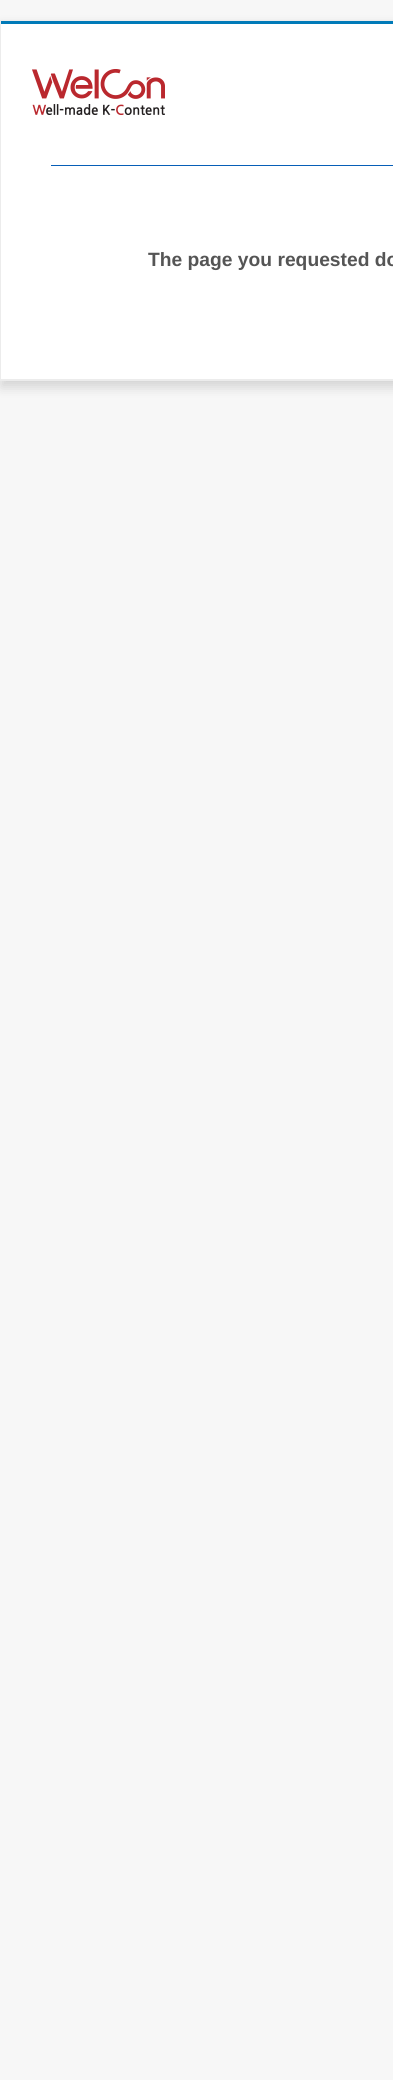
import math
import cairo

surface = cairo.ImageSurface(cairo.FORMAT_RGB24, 393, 2080)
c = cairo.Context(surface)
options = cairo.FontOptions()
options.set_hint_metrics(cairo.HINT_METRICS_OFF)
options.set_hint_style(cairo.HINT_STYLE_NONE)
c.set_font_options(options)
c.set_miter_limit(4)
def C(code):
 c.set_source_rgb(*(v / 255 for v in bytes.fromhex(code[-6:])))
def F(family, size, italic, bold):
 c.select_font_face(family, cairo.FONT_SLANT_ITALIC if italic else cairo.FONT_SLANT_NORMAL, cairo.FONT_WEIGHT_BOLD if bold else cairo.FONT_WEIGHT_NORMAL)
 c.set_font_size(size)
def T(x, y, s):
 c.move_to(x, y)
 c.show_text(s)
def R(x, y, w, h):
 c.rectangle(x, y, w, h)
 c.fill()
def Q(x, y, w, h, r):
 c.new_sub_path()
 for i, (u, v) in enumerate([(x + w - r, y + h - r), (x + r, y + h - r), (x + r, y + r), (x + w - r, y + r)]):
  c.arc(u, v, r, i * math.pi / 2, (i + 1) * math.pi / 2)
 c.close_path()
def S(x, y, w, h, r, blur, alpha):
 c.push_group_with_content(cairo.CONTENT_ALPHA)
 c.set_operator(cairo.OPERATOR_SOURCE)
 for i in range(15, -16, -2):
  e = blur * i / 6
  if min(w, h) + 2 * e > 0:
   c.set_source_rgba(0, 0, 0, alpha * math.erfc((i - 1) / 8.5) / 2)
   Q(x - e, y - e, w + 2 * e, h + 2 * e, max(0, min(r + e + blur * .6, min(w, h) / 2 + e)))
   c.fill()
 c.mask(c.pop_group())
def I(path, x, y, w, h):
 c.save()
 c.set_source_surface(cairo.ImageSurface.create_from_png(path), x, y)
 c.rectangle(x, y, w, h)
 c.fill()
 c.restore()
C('f7f7f7')
c.paint()
C('000000')
S(1,26,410,361,0,6,.15)
C('ffffff')
R(1,24,392,355)
C('ececec')
R(0,20,393,1)
R(0,379,393,2)
R(0,20,1,361)
C('007ab8')
R(1,21,392,3)
I('1.png',32,69,133,46)
C('075eb7')
R(51,165,342,1)
F('Liberation Sans',19.25,0,1)
C('555555')
T(148,266,'The page you requested do')
surface.write_to_png('o.png')
